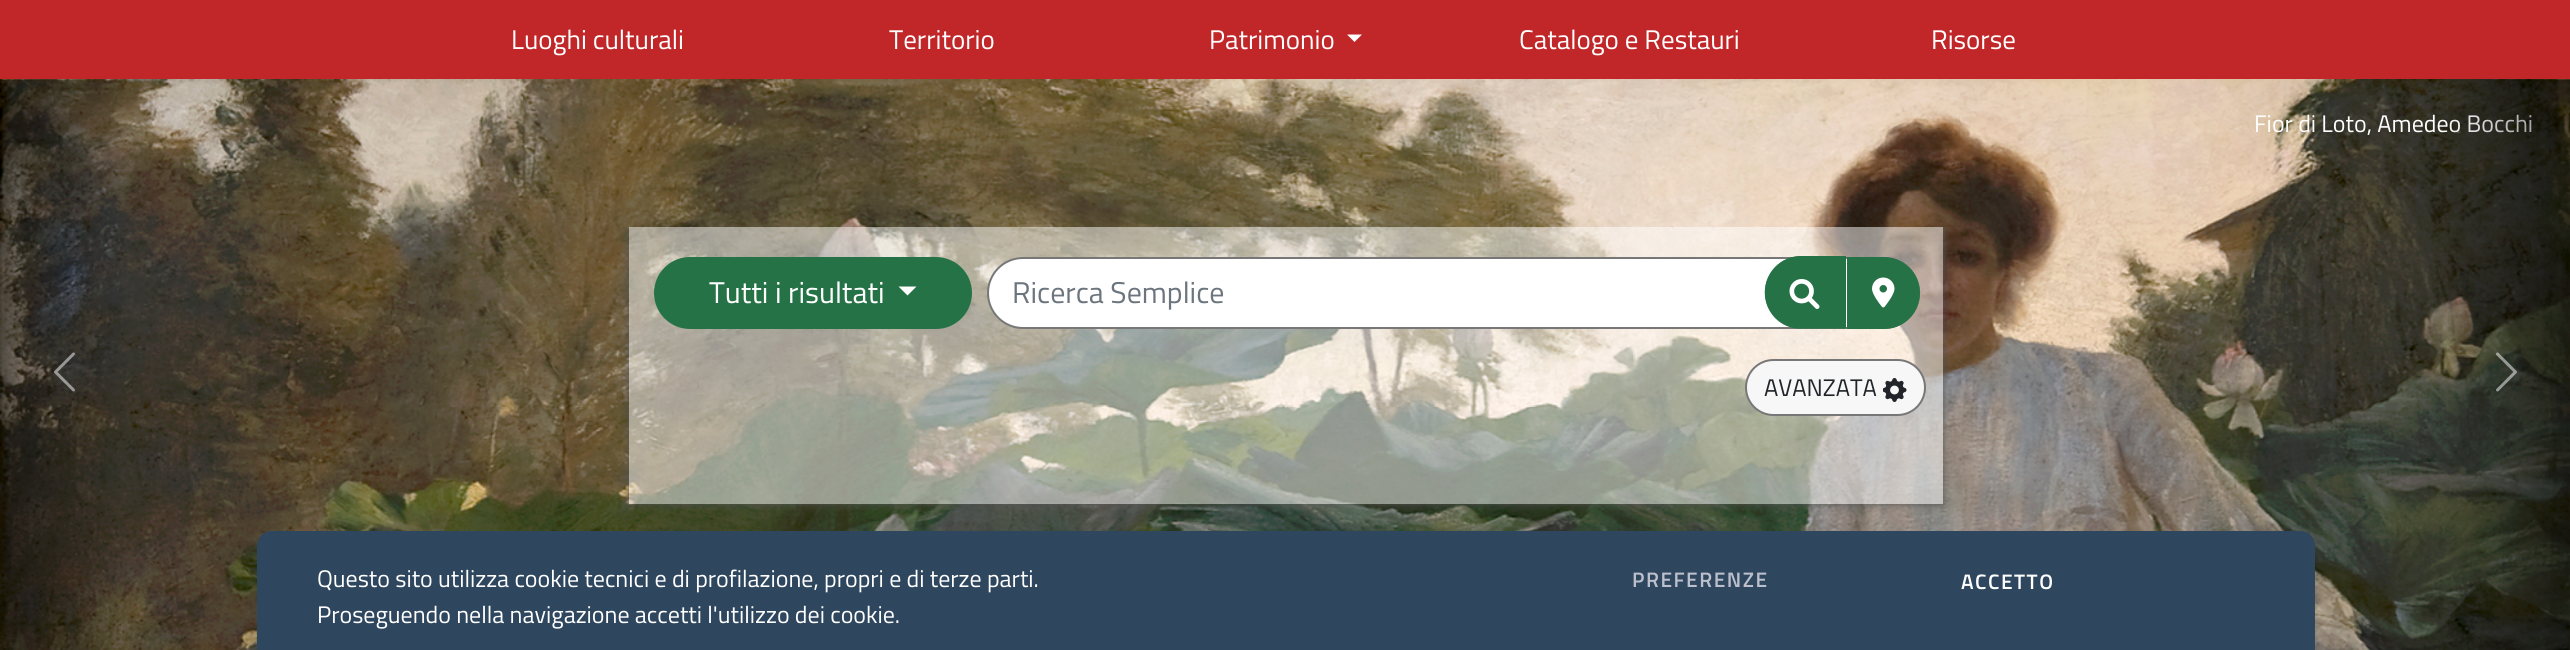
import math
import cairo

surface = cairo.ImageSurface(cairo.FORMAT_RGB24, 2570, 650)
c = cairo.Context(surface)
options = cairo.FontOptions()
options.set_hint_metrics(cairo.HINT_METRICS_OFF)
options.set_hint_style(cairo.HINT_STYLE_NONE)
c.set_font_options(options)
c.set_miter_limit(4)
def C(code):
 c.set_source_rgb(*(v / 255 for v in bytes.fromhex(code[-6:])))
def F(family, size, italic, bold):
 c.select_font_face(family, cairo.FONT_SLANT_ITALIC if italic else cairo.FONT_SLANT_NORMAL, cairo.FONT_WEIGHT_BOLD if bold else cairo.FONT_WEIGHT_NORMAL)
 c.set_font_size(size)
def T(x, y, s):
 c.move_to(x, y)
 c.show_text(s)
def L(x, y, s, letter, word):
 c.move_to(x, y)
 for ch in s:
  c.show_text(ch)
  c.rel_move_to(letter + word * (ch == ' '), 0)
def R(x, y, w, h):
 c.rectangle(x, y, w, h)
 c.fill()
def Q(x, y, w, h, r):
 c.new_sub_path()
 for i, (u, v) in enumerate([(x + w - r, y + h - r), (x + r, y + h - r), (x + r, y + r), (x + w - r, y + r)]):
  c.arc(u, v, r, i * math.pi / 2, (i + 1) * math.pi / 2)
 c.close_path()
def S(x, y, w, h, r, blur, alpha):
 c.push_group_with_content(cairo.CONTENT_ALPHA)
 c.set_operator(cairo.OPERATOR_SOURCE)
 for i in range(15, -16, -2):
  e = blur * i / 6
  if min(w, h) + 2 * e > 0:
   c.set_source_rgba(0, 0, 0, alpha * math.erfc((i - 1) / 8.5) / 2)
   Q(x - e, y - e, w + 2 * e, h + 2 * e, max(0, min(r + e + blur * .6, min(w, h) / 2 + e)))
   c.fill()
 c.mask(c.pop_group())
def I(path, x, y, w, h):
 c.save()
 c.set_source_surface(cairo.ImageSurface.create_from_png(path), x, y)
 c.rectangle(x, y, w, h)
 c.fill()
 c.restore()
C('ffffff')
c.paint()
C('c12629')
R(0,0,2570,80)
F('Titillium Web',27,0,0)
C('ffffff')
T(511,49,'Luoghi culturali')
T(889,49,'Territorio')
T(1209,49,'Patrimonio')
c.new_path()
c.move_to(1347,34.5)
c.line_to(1362,34.5)
c.line_to(1354.5,42)
c.close_path()
c.fill()
T(1519,49,'Catalogo e Restauri')
T(1931,49,'Risorse')
I('2.png',0,79,2570,571)
F('Titillium Web',24,0,0)
T(2254,132,'Fior di Loto, Amedeo Bocchi')
gradient = cairo.LinearGradient(2442,372,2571,372)
gradient.add_color_stop_rgba(0,0,0,0,0)
gradient.add_color_stop_rgba(1,0,0,0,.5)
c.set_source(gradient)
R(2448,80,122,570)
I('1.png',2496,352,21,40)
I('3.png',54,352,21,40)
c.save()
c.rectangle(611,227,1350,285)
c.clip()
c.set_fill_rule(cairo.FILL_RULE_EVEN_ODD)
c.new_path()
c.move_to(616,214)
c.line_to(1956,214)
c.line_to(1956,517)
c.line_to(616,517)
c.close_path()
c.move_to(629,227)
c.line_to(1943,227)
c.line_to(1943,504)
c.line_to(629,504)
c.close_path()
c.clip()
C('555555')
S(629,227,1314,277,0,4,1)
c.restore()
c.set_source_rgba(1,1,1,0.5)
R(629,227,1314,277)
C('267247')
Q(655,258,316,70,35)
c.fill_preserve()
c.stroke()
F('Titillium Web',30,0,0)
C('ffffff')
T(709,303,'Tutti i risultati')
c.new_path()
c.move_to(898.5,286.5)
c.line_to(916.5,286.5)
c.line_to(907.5,295.5)
c.close_path()
c.fill()
Q(988,258,931,70,35)
c.fill_preserve()
C('777777')
c.stroke()
C('6c757d')
T(1012,303,'Ricerca Semplice')
C('267247')
c.new_path()
c.move_to(1846,328)
c.line_to(1801,328)
c.curve_to(1781,328,1765,312,1765,292)
c.curve_to(1765,273,1781,256,1801,256)
c.line_to(1846,256)
c.close_path()
c.fill()
c.new_path()
c.move_to(1845,328)
c.line_to(1800.5,328)
c.curve_to(1781,328,1765.5,312,1765.5,292.5)
c.curve_to(1765.5,273,1781,257,1800.5,257)
c.line_to(1845,257)
c.close_path()
c.set_line_width(1.5)
c.stroke()
I('4.png',1789,279,31,30)
c.new_path()
c.move_to(1848,258)
c.line_to(1884,258)
c.curve_to(1903.5,258,1919,273.5,1919,293)
c.curve_to(1919,312.5,1903.5,328,1884,328)
c.line_to(1848,328)
c.close_path()
c.fill_preserve()
c.set_line_width(2)
c.stroke()
I('5.png',1872,277,23,31)
C('f7f7f7')
Q(1746,360,179,55,27.5)
c.fill_preserve()
C('777777')
c.stroke()
F('Titillium Web',24,0,0)
C('212529')
T(1764,396,'AVANZATA')
I('6.png',1883,378,24,24)
C('2e465e')
c.new_path()
c.move_to(272,531)
c.line_to(2300,531)
c.curve_to(2308.5,531,2315,537.5,2315,546)
c.line_to(2315,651)
c.line_to(257,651)
c.line_to(257,546)
c.curve_to(257,537.5,263.5,531,272,531)
c.close_path()
c.fill()
C('ffffff')
T(317,587,'Questo sito utilizza cookie tecnici e di profilazione, propri e di terze parti.')
T(317,623,'Proseguendo nella navigazione accetti l\'utilizzo dei cookie.')
F('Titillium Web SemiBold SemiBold',21,0,0)
C('bcc0cc')
L(1632,587,'PREFERENZE',1.5,0)
C('ffffff')
L(1961,589,'ACCETTO',1.5,0)
surface.write_to_png('o.png')
